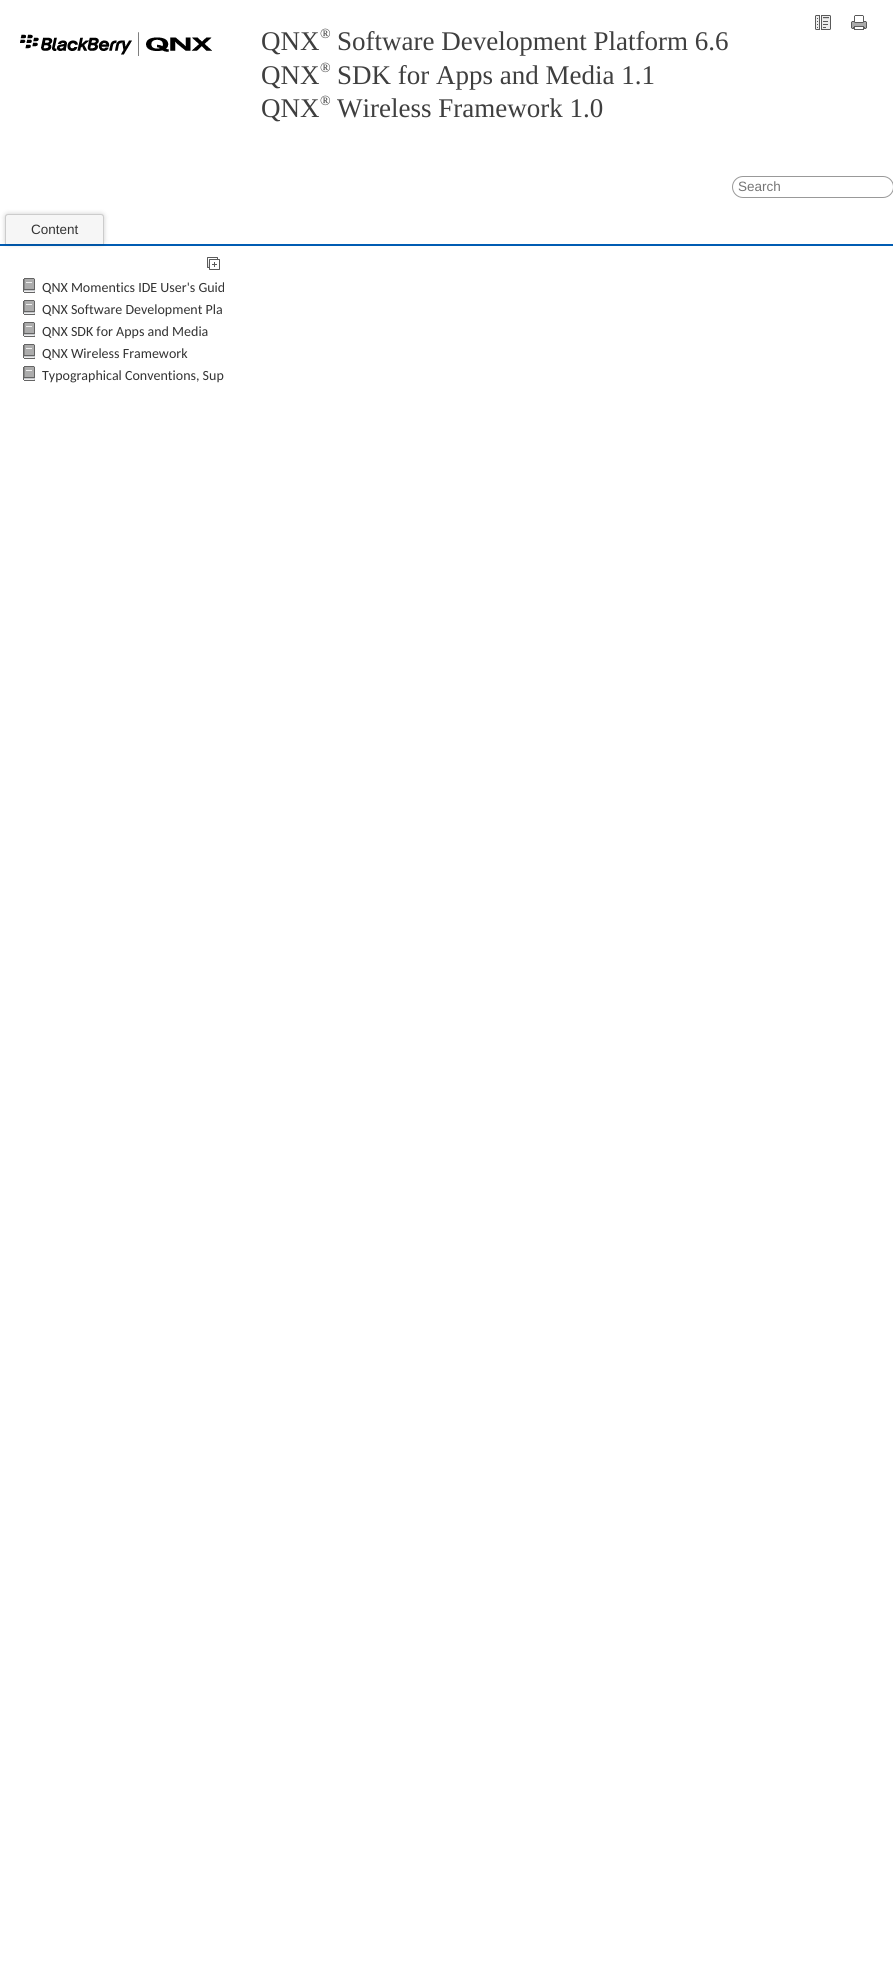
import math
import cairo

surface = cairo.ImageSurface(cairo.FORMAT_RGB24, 893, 1981)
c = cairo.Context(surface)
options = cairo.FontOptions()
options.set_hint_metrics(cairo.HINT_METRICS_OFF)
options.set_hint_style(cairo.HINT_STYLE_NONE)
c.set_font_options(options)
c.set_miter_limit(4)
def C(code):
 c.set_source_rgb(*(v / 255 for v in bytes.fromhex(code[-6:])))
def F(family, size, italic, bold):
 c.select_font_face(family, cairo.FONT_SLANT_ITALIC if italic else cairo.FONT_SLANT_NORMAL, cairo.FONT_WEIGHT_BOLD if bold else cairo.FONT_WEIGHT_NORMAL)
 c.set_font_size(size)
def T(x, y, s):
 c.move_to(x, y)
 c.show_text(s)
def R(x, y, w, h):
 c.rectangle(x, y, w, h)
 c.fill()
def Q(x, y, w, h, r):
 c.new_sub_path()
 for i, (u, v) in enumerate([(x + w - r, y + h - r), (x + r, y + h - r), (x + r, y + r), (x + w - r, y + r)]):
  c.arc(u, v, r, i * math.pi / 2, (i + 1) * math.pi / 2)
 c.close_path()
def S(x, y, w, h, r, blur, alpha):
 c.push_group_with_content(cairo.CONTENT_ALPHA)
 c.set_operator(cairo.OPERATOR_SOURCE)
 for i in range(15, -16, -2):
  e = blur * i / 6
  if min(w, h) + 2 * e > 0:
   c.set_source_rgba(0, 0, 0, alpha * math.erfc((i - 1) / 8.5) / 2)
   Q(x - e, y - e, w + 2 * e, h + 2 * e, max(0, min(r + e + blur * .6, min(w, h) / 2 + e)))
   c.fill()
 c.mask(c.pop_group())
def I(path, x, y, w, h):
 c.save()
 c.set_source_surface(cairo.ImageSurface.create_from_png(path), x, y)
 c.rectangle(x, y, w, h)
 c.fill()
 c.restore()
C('ffffff')
c.paint()
I('1.png',815,15,16,15)
I('2.png',851,15,16,15)
I('3.png',20,32,192,24)
F('Liberation Serif',27,0,0)
C('3f3f3f')
T(261,50,'QNX')
F('Liberation Serif',14,0,0)
T(320,38,'®')
F('Liberation Serif',27,0,0)
T(337,50,'Software Development Platform 6.6')
T(261,84,'QNX')
F('Liberation Serif',14,0,0)
T(320,72,'®')
F('Liberation Serif',27,0,0)
T(337,84,'SDK for Apps and Media 1.1')
T(261,117,'QNX')
F('Liberation Serif',14,0,0)
T(320,105,'®')
F('Liberation Serif',27,0,0)
T(337,117,'Wireless Framework 1.0')
Q(732.5,176.5,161,21,10.5)
C('999999')
c.set_line_width(1)
c.stroke()
F('Liberation Sans',13.5,0,0)
C('757575')
T(738,191,'Search')
C('005cb3')
R(0,244,893,2)
C('000000')
S(5,214,99,30,3,2.5,.2)
C('f6f6f6')
c.new_path()
c.move_to(8,214)
c.line_to(101,214)
c.curve_to(102.5,214,104,215.5,104,217)
c.line_to(104,244)
c.line_to(5,244)
c.line_to(5,217)
c.curve_to(5,215.5,6.5,214,8,214)
c.close_path()
c.fill()
C('cccccc')
c.set_fill_rule(cairo.FILL_RULE_EVEN_ODD)
c.new_path()
c.move_to(8,214)
c.line_to(101,214)
c.curve_to(103,214,104,215,104,217)
c.line_to(104,244)
c.line_to(5,244)
c.line_to(5,217)
c.curve_to(5,215,6,214,8,214)
c.close_path()
c.move_to(8,215)
c.line_to(101,215)
c.curve_to(102,215,103,216,103,217)
c.line_to(103,244)
c.line_to(6,244)
c.line_to(6,217)
c.curve_to(6,216,7,215,8,215)
c.close_path()
c.fill()
C('333333')
T(31,234,'Content')
I('4.png',207,257,13,13)
I('5.png',23,278,12,15)
c.save()
c.set_fill_rule(cairo.FILL_RULE_WINDING)
c.rectangle(1,247,223,1732)
c.clip()
F('Carlito',14,0,0)
T(42,292,'QNX Momentics IDE User\'s Guid')
c.restore()
I('5.png',23,300,12,15)
F('Carlito',14,0,0)
T(42,314,'QNX Software Development Pla')
I('5.png',23,322,12,15)
T(42,336,'QNX SDK for Apps and Media')
I('5.png',23,344,12,15)
T(42,358,'QNX Wireless Framework')
I('5.png',23,366,12,15)
T(42,380,'Typographical Conventions, Sup')
surface.write_to_png('o.png')
